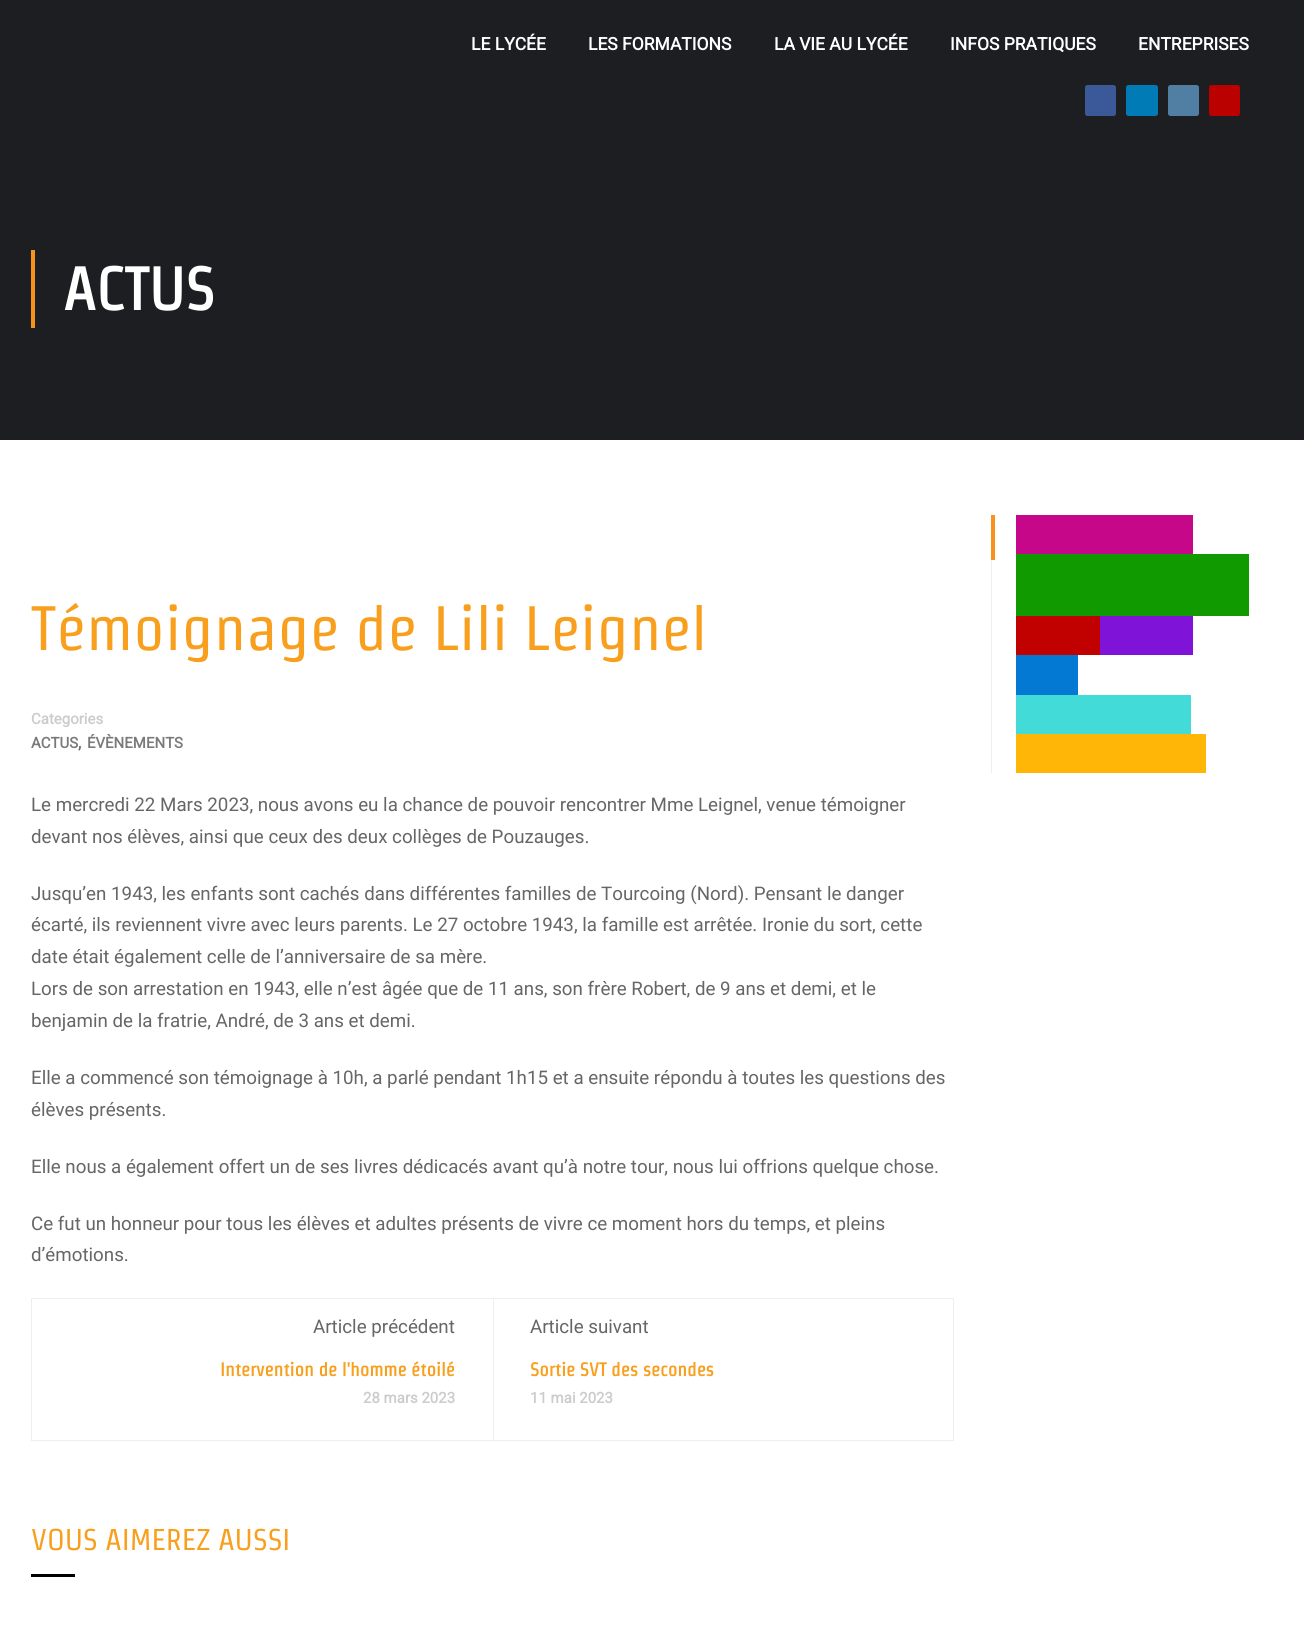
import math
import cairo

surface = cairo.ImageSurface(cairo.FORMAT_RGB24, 1304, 1649)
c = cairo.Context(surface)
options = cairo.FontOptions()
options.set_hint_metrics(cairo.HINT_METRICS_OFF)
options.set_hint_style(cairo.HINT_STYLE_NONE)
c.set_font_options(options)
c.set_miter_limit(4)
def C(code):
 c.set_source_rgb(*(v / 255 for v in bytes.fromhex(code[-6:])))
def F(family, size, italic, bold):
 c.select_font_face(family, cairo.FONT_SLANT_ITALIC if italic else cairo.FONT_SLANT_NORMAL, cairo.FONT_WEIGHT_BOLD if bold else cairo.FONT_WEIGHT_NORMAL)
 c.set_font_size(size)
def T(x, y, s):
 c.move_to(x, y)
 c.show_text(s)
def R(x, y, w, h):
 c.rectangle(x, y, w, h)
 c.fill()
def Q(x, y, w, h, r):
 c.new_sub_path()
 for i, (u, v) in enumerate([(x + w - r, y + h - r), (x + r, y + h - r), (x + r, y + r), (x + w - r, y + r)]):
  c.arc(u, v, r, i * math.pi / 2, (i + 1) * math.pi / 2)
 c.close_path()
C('ffffff')
c.paint()
C('1c1e22')
R(0,0,1304,440)
F('Roboto',17.5,0,1)
C('ffffff')
T(471,50,'LE LYCÉE')
T(588,50,'LES FORMATIONS')
T(774,50,'LA VIE AU LYCÉE')
T(950,50,'INFOS PRATIQUES')
T(1138,50,'ENTREPRISES')
C('3b5998')
Q(1085,85,31,31,2.5)
c.fill()
C('007bb5')
Q(1126,85,32,31,2.5)
c.fill()
C('517fa4')
Q(1168,85,31,31,2.5)
c.fill()
C('bb0000')
Q(1209,85,31,31,2.5)
c.fill()
C('f7931d')
R(31,250,4,78)
F('Strait',60,0,1)
C('ffffff')
T(63,310,'ACTUS')
F('Strait',62.5,0,0)
C('f89f1d')
T(31,650,'Témoignage de Lili Leignel')
F('Roboto',15,0,1)
C('cccccc')
T(31,724,'Categories')
C('7a7a7a')
T(31,748,'ACTUS')
F('Roboto',18.75,0,0)
C('666666')
T(78,748,',')
F('Roboto',15,0,1)
C('7a7a7a')
T(87,748,'ÉVÈNEMENTS')
F('Roboto',18.75,0,0)
C('666666')
T(31,811,'Le mercredi 22 Mars 2023, nous avons eu la chance de pouvoir rencontrer Mme Leignel, venue témoigner')
T(31,843,'devant nos élèves, ainsi que ceux des deux collèges de Pouzauges.')
T(31,900,'Jusqu’en 1943, les enfants sont cachés dans différentes familles de Tourcoing (Nord). Pensant le danger')
T(31,931,'écarté, ils reviennent vivre avec leurs parents. Le 27 octobre 1943, la famille est arrêtée. Ironie du sort, cette')
T(31,963,'date était également celle de l’anniversaire de sa mère.')
T(31,995,'Lors de son arrestation en 1943, elle n’est âgée que de 11 ans, son frère Robert, de 9 ans et demi, et le')
T(31,1027,'benjamin de la fratrie, André, de 3 ans et demi.')
T(31,1084,'Elle a commencé son témoignage à 10h, a parlé pendant 1h15 et a ensuite répondu à toutes les questions des')
T(31,1116,'élèves présents.')
T(31,1173,'Elle nous a également offert un de ses livres dédicacés avant qu’à notre tour, nous lui offrions quelque chose.')
T(31,1230,'Ce fut un honneur pour tous les élèves et adultes présents de vivre ce moment hors du temps, et pleins')
T(31,1261,'d’émotions.')
c.rectangle(31.5,1298.5,922,142)
C('eeeeee')
c.set_line_width(1)
c.stroke()
C('666666')
T(313,1333,'Article précédent')
F('Strait',18.75,0,1)
C('f89f1d')
T(220,1376,'Intervention de l\'homme étoilé')
F('Roboto',15,0,1)
C('cccccc')
T(363,1403,'28 mars 2023')
C('eeeeee')
R(493,1299,1,141)
F('Roboto',18.75,0,0)
C('666666')
T(530,1333,'Article suivant')
F('Strait',18.75,0,1)
C('f89f1d')
T(530,1376,'Sortie SVT des secondes')
F('Roboto',15,0,1)
C('cccccc')
T(530,1403,'11 mai 2023')
F('Strait',30,0,0)
C('f89f1d')
T(31,1550,'VOUS AIMEREZ AUSSI')
C('000000')
R(31,1574,44,3)
C('f7931d')
R(991,515,4,45)
C('c6078a')
R(1016,515,177,39)
C('119900')
R(1016,554,233,62)
C('c10000')
R(1016,616,84,39)
C('7f13d8')
R(1100,616,93,39)
C('0479d3')
R(1016,655,62,40)
C('43dbd8')
R(1016,695,175,39)
C('ffb606')
R(1016,734,190,39)
C('eeeeee')
R(991,560,1,213)
surface.write_to_png('o.png')
